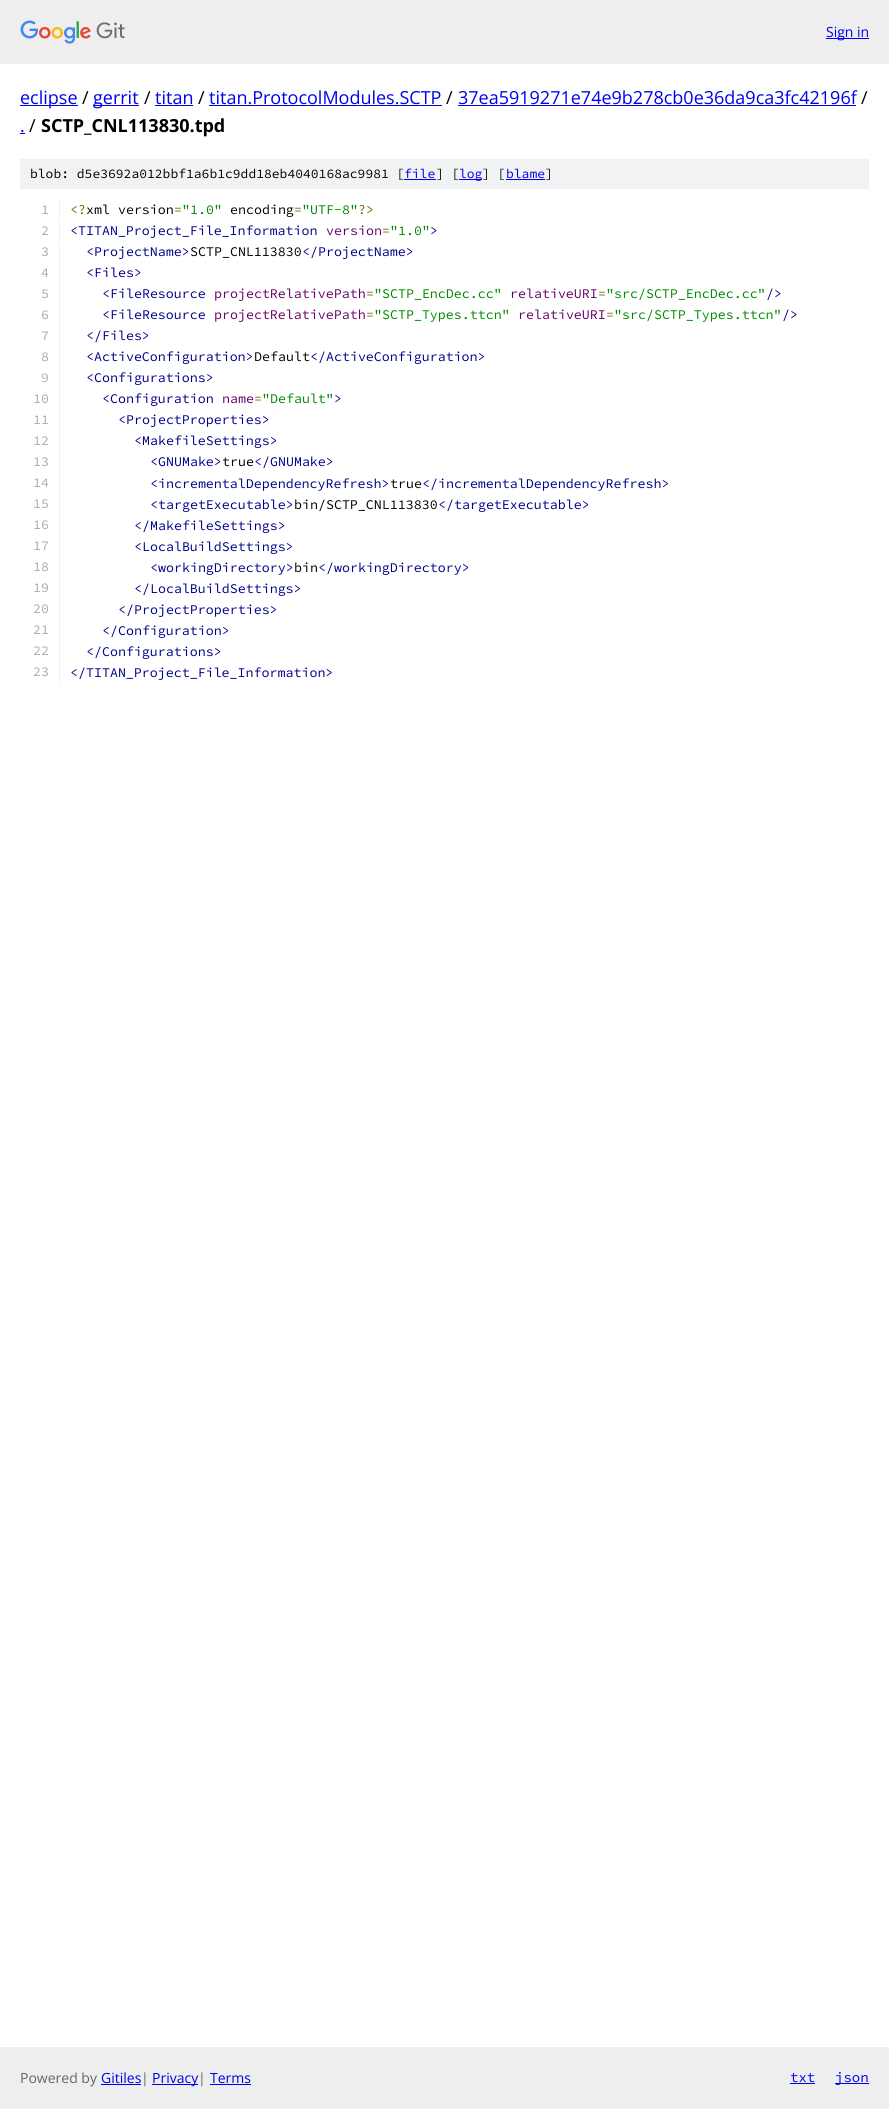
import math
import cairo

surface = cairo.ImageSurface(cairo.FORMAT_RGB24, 889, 2109)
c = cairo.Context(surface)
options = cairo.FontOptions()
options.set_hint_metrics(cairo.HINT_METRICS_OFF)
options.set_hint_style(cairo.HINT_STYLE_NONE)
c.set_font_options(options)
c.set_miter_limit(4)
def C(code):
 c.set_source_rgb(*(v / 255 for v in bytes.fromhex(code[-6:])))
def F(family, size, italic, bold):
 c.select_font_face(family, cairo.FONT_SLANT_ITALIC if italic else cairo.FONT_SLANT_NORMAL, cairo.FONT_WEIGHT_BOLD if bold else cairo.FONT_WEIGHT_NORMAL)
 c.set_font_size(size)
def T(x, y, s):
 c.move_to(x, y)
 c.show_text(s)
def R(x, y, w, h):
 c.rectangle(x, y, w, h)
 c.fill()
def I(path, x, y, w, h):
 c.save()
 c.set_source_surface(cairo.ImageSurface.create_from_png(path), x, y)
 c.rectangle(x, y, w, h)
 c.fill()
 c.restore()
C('ffffff')
c.paint()
C('eeeeee')
R(0,0,889,64)
I('1.png',20,20,105,24)
C('0000ee')
R(826,38,43,1)
F('Open Sans',14,0,0)
T(826,37,'Sign in')
R(20,105,58,1)
F('Open Sans',18,0,0)
T(20,104,'eclipse')
C('000000')
T(82,104,'/')
C('0000ee')
R(93,105,46,1)
T(93,104,'gerrit')
C('000000')
T(144,104,'/')
C('0000ee')
T(155,104,'titan')
R(155,105,38,1)
C('000000')
T(198,104,'/')
C('0000ee')
T(209,104,'titan.ProtocolModules.SCTP')
R(209,105,233,1)
C('000000')
T(446,104,'/')
C('0000ee')
T(458,104,'37ea5919271e74e9b278cb0e36da9ca3fc42196f')
R(458,105,398,1)
C('000000')
T(861,104,'/')
C('0000ee')
T(20,132,'.')
R(20,133,5,1)
C('000000')
T(29,132,'/')
F('Open Sans',18,0,1)
T(41,132,'SCTP_CNL113830.tpd')
C('f1f2f3')
R(20,159,849,30)
F('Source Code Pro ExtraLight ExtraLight',13,0,0)
C('000000')
T(30,178,'blob: d5e3692a012bbf1a6b1c9dd18eb4040168ac9981 [')
C('0000ee')
T(404,178,'file')
R(404,179,32,1)
C('000000')
T(436,178,'] [')
C('0000ee')
R(459,179,23,1)
T(459,178,'log')
C('000000')
T(482,178,'] [')
C('0000ee')
T(506,178,'blame')
R(506,179,39,1)
C('000000')
T(545,178,']')
C('f1f2f3')
R(59,200,1,20)
F('Source Code Pro ExtraLight ExtraLight',13.3,0,0)
C('aaaaaa')
T(41,214,'1')
C('666600')
T(70,214,'<?')
C('000000')
T(86,214,'xml version')
C('666600')
T(174,214,'=')
C('008800')
T(182,214,'"1.0"')
C('000000')
T(230,214,'encoding')
C('666600')
T(294,214,'=')
C('008800')
T(302,214,'"UTF-8"')
C('666600')
T(358,214,'?>')
C('f1f2f3')
R(59,221,1,20)
C('aaaaaa')
T(41,235,'2')
C('000088')
T(70,235,'<TITAN_Project_File_Information')
C('660066')
T(326,235,'version')
C('666600')
T(382,235,'=')
C('008800')
T(390,235,'"1.0"')
C('000088')
T(430,235,'>')
C('f1f2f3')
R(59,242,1,441)
C('aaaaaa')
T(41,256,'3')
C('000088')
T(86,256,'<ProjectName>')
C('000000')
T(190,256,'SCTP_CNL113830')
C('000088')
T(302,256,'</ProjectName>')
C('aaaaaa')
T(41,277,'4')
C('000088')
T(86,277,'<Files>')
C('aaaaaa')
T(41,298,'5')
C('000088')
T(102,298,'<FileResource')
C('660066')
T(214,298,'projectRelativePath')
C('666600')
T(366,298,'=')
C('008800')
T(374,298,'"SCTP_EncDec.cc"')
C('660066')
T(510,298,'relativeURI')
C('666600')
T(598,298,'=')
C('008800')
T(606,298,'"src/SCTP_EncDec.cc"')
C('000088')
T(766,298,'/>')
C('aaaaaa')
T(41,319,'6')
C('000088')
T(102,319,'<FileResource')
C('660066')
T(214,319,'projectRelativePath')
C('666600')
T(366,319,'=')
C('008800')
T(374,319,'"SCTP_Types.ttcn"')
C('660066')
T(518,319,'relativeURI')
C('666600')
T(606,319,'=')
C('008800')
T(614,319,'"src/SCTP_Types.ttcn"')
C('000088')
T(782,319,'/>')
C('aaaaaa')
T(41,340,'7')
C('000088')
T(86,340,'</Files>')
C('aaaaaa')
T(41,361,'8')
C('000088')
T(86,361,'<ActiveConfiguration>')
C('000000')
T(254,361,'Default')
C('000088')
T(310,361,'</ActiveConfiguration>')
C('aaaaaa')
T(41,382,'9')
C('000088')
T(86,382,'<Configurations>')
C('aaaaaa')
T(33,403,'10')
C('000088')
T(102,403,'<Configuration')
C('660066')
T(222,403,'name')
C('666600')
T(254,403,'=')
C('008800')
T(262,403,'"Default"')
C('000088')
T(334,403,'>')
C('aaaaaa')
T(33,424,'11')
C('000088')
T(118,424,'<ProjectProperties>')
C('aaaaaa')
T(33,445,'12')
C('000088')
T(134,445,'<MakefileSettings>')
C('aaaaaa')
T(33,466,'13')
C('000088')
T(150,466,'<GNUMake>')
C('000000')
T(222,466,'true')
C('000088')
T(254,466,'</GNUMake>')
C('aaaaaa')
T(33,487,'14')
C('000088')
T(150,488,'<incrementalDependencyRefresh>')
C('000000')
T(390,488,'true')
C('000088')
T(422,488,'</incrementalDependencyRefresh>')
C('aaaaaa')
T(33,508,'15')
C('000088')
T(150,509,'<targetExecutable>')
C('000000')
T(294,509,'bin/SCTP_CNL113830')
C('000088')
T(438,509,'</targetExecutable>')
C('aaaaaa')
T(33,529,'16')
C('000088')
T(134,530,'</MakefileSettings>')
C('aaaaaa')
T(33,550,'17')
C('000088')
T(134,551,'<LocalBuildSettings>')
C('aaaaaa')
T(33,571,'18')
C('000088')
T(150,572,'<workingDirectory>')
C('000000')
T(294,572,'bin')
C('000088')
T(318,572,'</workingDirectory>')
C('aaaaaa')
T(33,592,'19')
C('000088')
T(134,593,'</LocalBuildSettings>')
C('aaaaaa')
T(33,613,'20')
C('000088')
T(118,614,'</ProjectProperties>')
C('aaaaaa')
T(33,634,'21')
C('000088')
T(102,635,'</Configuration>')
C('aaaaaa')
T(33,655,'22')
C('000088')
T(86,656,'</Configurations>')
C('aaaaaa')
T(33,676,'23')
C('000088')
T(70,677,'</TITAN_Project_File_Information>')
C('eeeeee')
R(0,2047,889,62)
F('Open Sans',14,0,0)
C('666666')
T(20,2083,'Powered by')
C('0000ee')
T(101,2083,'Gitiles')
R(101,2084,40,1)
C('666666')
T(141,2083,'|')
C('0000ee')
R(152,2084,46,1)
T(152,2083,'Privacy')
C('666666')
T(198,2083,'|')
C('0000ee')
T(210,2083,'Terms')
R(210,2084,41,1)
F('Source Code Pro ExtraLight ExtraLight',14,0,0)
T(790,2082,'txt')
R(790,2083,25,1)
R(835,2083,34,1)
T(835,2082,'json')
surface.write_to_png('o.png')
